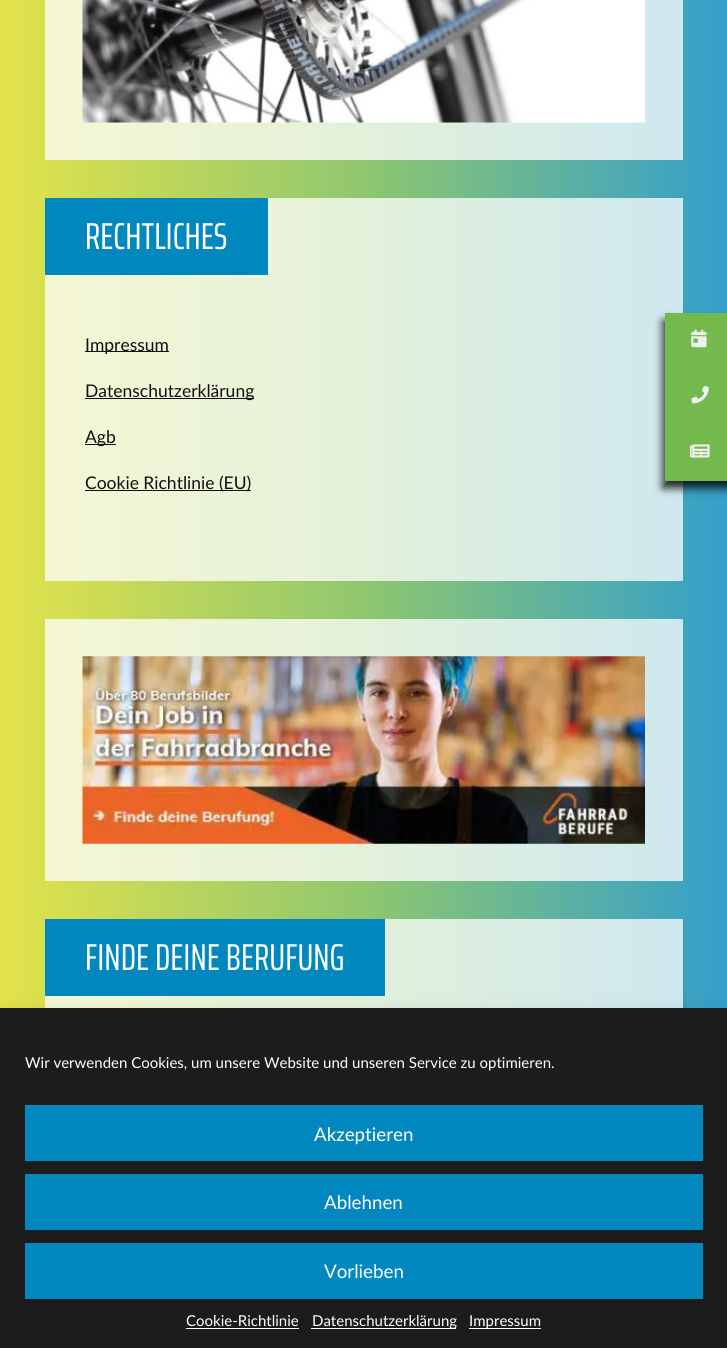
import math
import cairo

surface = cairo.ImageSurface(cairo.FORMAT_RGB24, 727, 1348)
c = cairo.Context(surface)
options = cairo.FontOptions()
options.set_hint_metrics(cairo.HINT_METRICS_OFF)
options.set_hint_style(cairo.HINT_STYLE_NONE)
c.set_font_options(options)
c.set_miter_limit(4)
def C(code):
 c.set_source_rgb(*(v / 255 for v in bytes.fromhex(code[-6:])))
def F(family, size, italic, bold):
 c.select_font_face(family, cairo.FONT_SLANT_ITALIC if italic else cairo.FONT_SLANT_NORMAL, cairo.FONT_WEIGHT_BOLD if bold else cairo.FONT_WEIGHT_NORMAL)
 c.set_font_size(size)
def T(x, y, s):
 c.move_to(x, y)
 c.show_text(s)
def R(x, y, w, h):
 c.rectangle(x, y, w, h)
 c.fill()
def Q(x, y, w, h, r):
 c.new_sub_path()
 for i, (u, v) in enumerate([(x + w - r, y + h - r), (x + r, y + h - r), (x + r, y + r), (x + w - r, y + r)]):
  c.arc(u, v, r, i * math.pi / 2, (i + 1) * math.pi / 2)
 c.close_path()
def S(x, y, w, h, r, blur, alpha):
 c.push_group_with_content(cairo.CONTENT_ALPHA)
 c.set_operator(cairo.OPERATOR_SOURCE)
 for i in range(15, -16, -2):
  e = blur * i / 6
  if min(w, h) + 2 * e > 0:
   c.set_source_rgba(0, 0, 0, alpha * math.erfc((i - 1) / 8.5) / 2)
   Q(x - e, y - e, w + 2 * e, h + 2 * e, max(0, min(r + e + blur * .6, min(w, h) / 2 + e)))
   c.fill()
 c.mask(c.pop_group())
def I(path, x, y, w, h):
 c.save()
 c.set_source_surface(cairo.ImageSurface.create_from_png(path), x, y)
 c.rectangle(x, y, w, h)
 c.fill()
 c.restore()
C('ffffff')
c.paint()
gradient = cairo.LinearGradient(0,-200,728,-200)
gradient.add_color_stop_rgba(0,0.89,0.89,0.294,1)
gradient.add_color_stop_rgba(.5,0.561,0.78,0.435,1)
gradient.add_color_stop_rgba(1,0.2,0.624,0.796,1)
c.set_source(gradient)
R(0,0,727,1008)
c.set_source_rgba(1,1,1,0.75)
R(45,0,638,160)
I('1.png',82,0,563,123)
R(45,198,638,383)
C('0087be')
R(45,198,223,77)
F('Saira ExtraCondensed',37.5,0,0)
C('ffffff')
T(85,249,'RECHTLICHES')
C('101010')
R(85,351,84,1)
F('Lato',17.5,0,0)
T(85,351,'Impressum')
R(85,398,169,1)
T(85,397,'Datenschutzerklärung')
R(85,444,31,1)
T(85,443,'Agb')
R(85,490,166,1)
T(85,489,'Cookie Richtlinie (EU)')
c.set_source_rgba(1,1,1,0.75)
R(45,619,638,262)
I('2.png',82,656,563,188)
c.save()
c.set_fill_rule(cairo.FILL_RULE_EVEN_ODD)
c.new_path()
c.move_to(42,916)
c.line_to(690,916)
c.line_to(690,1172)
c.line_to(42,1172)
c.close_path()
c.move_to(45,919)
c.line_to(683,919)
c.line_to(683,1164)
c.line_to(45,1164)
c.close_path()
c.clip()
C('000000')
S(46,920,640,248,0,1,.04)
c.restore()
R(45,919,638,89)
C('0087be')
R(45,919,340,77)
F('Saira ExtraCondensed',37.5,0,0)
C('ffffff')
T(85,970,'FINDE DEINE BERUFUNG')
C('000000')
S(663,321,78,167,0,4.5,.85)
C('73b94b')
R(665,313,62,168)
I('3.png',691,329,16,19)
I('4.png',691,386,18,18)
I('5.png',690,444,20,14)
C('000000')
S(0,1020,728,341,0,12.5,.19)
C('1c1c1c')
R(0,1008,727,340)
F('Lato',15,0,0)
C('ffffff')
T(25,1068,'Wir verwenden Cookies, um unsere Website und unseren Service zu optimieren.')
C('0087be')
R(25,1105,678,56)
F('Lato',18.75,0,0)
C('ffffff')
T(314,1141,'Akzeptieren')
C('0087be')
R(25,1174,678,56)
C('ffffff')
T(324,1209,'Ablehnen')
C('0087be')
R(25,1243,678,56)
C('ffffff')
T(324,1278,'Vorlieben')
F('Lato',15,0,0)
T(186,1326,'Cookie-Richtlinie')
R(186,1328,113,1)
R(311,1328,145,1)
T(312,1326,'Datenschutzerklärung')
R(469,1328,72,1)
T(469,1326,'Impressum')
surface.write_to_png('o.png')
